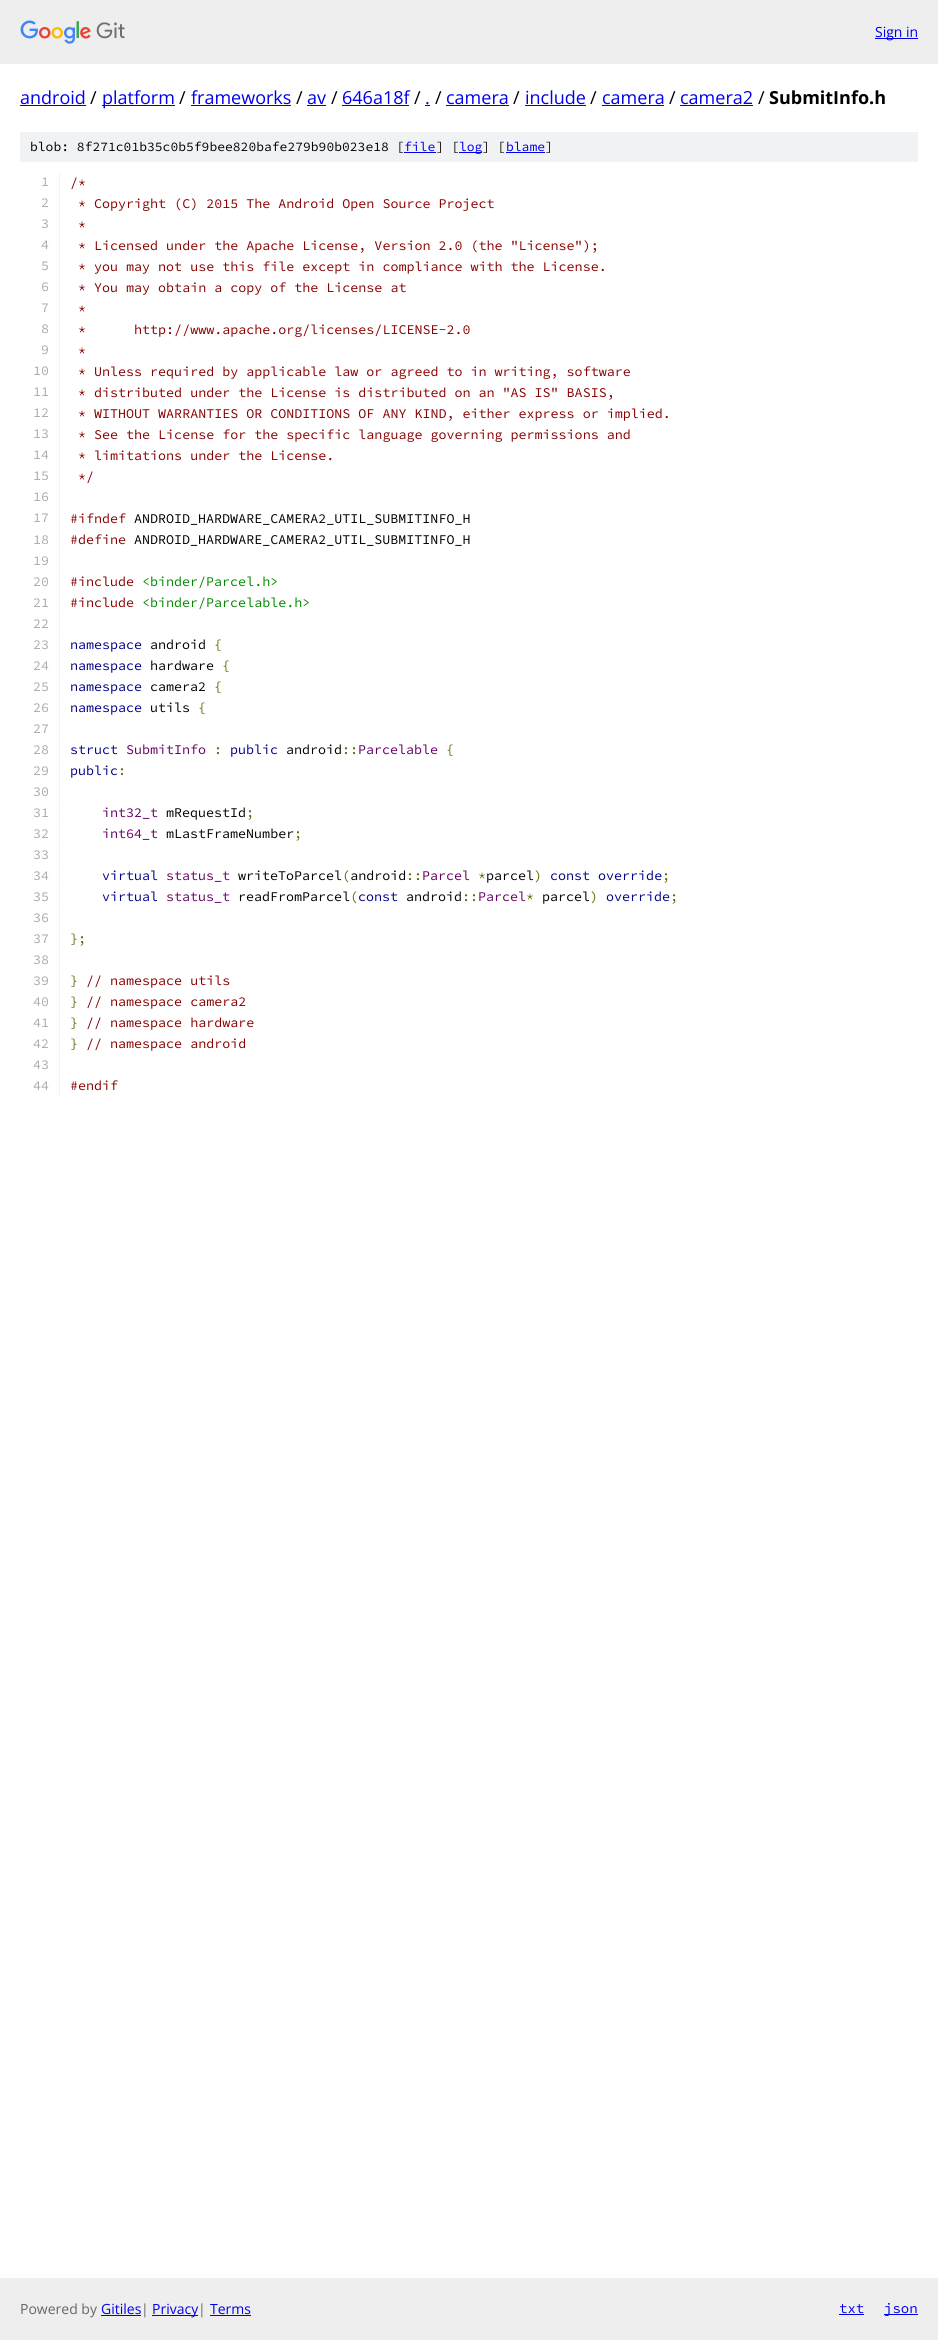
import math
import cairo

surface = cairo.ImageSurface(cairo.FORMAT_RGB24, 938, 2340)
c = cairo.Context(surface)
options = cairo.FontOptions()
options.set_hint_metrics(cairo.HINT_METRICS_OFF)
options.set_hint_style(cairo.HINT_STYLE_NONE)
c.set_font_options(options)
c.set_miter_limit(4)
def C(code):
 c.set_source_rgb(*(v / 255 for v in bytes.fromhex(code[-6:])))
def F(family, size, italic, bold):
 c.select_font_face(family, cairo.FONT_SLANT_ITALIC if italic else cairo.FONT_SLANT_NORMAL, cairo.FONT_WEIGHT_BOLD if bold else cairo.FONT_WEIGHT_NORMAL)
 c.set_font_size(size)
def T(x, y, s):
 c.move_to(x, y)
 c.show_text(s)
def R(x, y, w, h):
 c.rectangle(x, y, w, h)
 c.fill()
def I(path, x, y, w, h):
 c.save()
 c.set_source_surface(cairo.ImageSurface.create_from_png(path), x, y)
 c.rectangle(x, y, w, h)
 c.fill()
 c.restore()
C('ffffff')
c.paint()
C('eeeeee')
R(0,0,938,64)
I('1.png',20,20,105,24)
C('0000ee')
R(875,38,43,1)
F('Open Sans',14,0,0)
T(875,37,'Sign in')
F('Open Sans',18,0,0)
T(20,104,'android')
R(20,105,66,1)
C('000000')
T(90,104,'/')
C('0000ee')
R(102,105,73,1)
T(102,104,'platform')
C('000000')
T(179,104,'/')
C('0000ee')
T(191,104,'frameworks')
R(191,105,100,1)
C('000000')
T(296,104,'/')
C('0000ee')
T(307,104,'av')
R(307,105,19,1)
C('000000')
T(331,104,'/')
C('0000ee')
T(342,104,'646a18f')
R(342,105,67,1)
C('000000')
T(414,104,'/')
C('0000ee')
T(425,104,'.')
R(425,105,5,1)
C('000000')
T(435,104,'/')
C('0000ee')
T(446,104,'camera')
R(446,105,63,1)
C('000000')
T(513,104,'/')
C('0000ee')
T(525,104,'include')
R(525,105,61,1)
C('000000')
T(590,104,'/')
C('0000ee')
T(602,104,'camera')
R(602,105,62,1)
C('000000')
T(669,104,'/')
C('0000ee')
T(680,104,'camera2')
R(680,105,73,1)
C('000000')
T(758,104,'/')
F('Open Sans',18,0,1)
T(769,104,'SubmitInfo.h')
C('f1f2f3')
R(20,132,898,30)
F('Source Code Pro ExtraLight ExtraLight',13,0,0)
C('000000')
T(30,151,'blob: 8f271c01b35c0b5f9bee820bafe279b90b023e18 [')
C('0000ee')
T(404,151,'file')
R(404,152,32,1)
C('000000')
T(436,151,'] [')
C('0000ee')
R(459,152,23,1)
T(459,151,'log')
C('000000')
T(482,151,'] [')
C('0000ee')
T(506,151,'blame')
R(506,152,39,1)
C('000000')
T(545,151,']')
C('f1f2f3')
R(59,172,1,357)
F('Source Code Pro ExtraLight ExtraLight',13.35,0,0)
C('aaaaaa')
T(41,186,'1')
C('880000')
T(70,187,'/*')
C('aaaaaa')
T(41,207,'2')
C('880000')
T(78,208,'* Copyright (C) 2015 The Android Open Source Project')
C('aaaaaa')
T(41,228,'3')
C('880000')
T(78,229,'*')
C('aaaaaa')
T(41,249,'4')
C('880000')
T(78,250,'* Licensed under the Apache License, Version 2.0 (the "License");')
C('aaaaaa')
T(41,270,'5')
C('880000')
T(78,271,'* you may not use this file except in compliance with the License.')
C('aaaaaa')
T(41,291,'6')
C('880000')
T(78,292,'* You may obtain a copy of the License at')
C('aaaaaa')
T(41,312,'7')
C('880000')
T(78,313,'*')
C('aaaaaa')
T(41,333,'8')
C('880000')
T(78,334,'*      http://www.apache.org/licenses/LICENSE-2.0')
C('aaaaaa')
T(41,354,'9')
C('880000')
T(78,355,'*')
C('aaaaaa')
T(33,375,'10')
C('880000')
T(78,376,'* Unless required by applicable law or agreed to in writing, software')
C('aaaaaa')
T(33,396,'11')
C('880000')
T(78,397,'* distributed under the License is distributed on an "AS IS" BASIS,')
C('aaaaaa')
T(33,417,'12')
C('880000')
T(78,418,'* WITHOUT WARRANTIES OR CONDITIONS OF ANY KIND, either express or implied.')
C('aaaaaa')
T(33,438,'13')
C('880000')
T(78,439,'* See the License for the specific language governing permissions and')
C('aaaaaa')
T(33,459,'14')
C('880000')
T(78,460,'* limitations under the License.')
C('aaaaaa')
T(33,480,'15')
C('880000')
T(78,481,'*/')
C('aaaaaa')
T(33,501,'16')
T(33,522,'17')
C('880000')
T(70,523,'#ifndef')
C('000000')
T(134,523,'ANDROID_HARDWARE_CAMERA2_UTIL_SUBMITINFO_H')
C('f1f2f3')
R(59,530,1,20)
C('aaaaaa')
T(33,544,'18')
C('880000')
T(70,544,'#define')
C('000000')
T(134,544,'ANDROID_HARDWARE_CAMERA2_UTIL_SUBMITINFO_H')
C('f1f2f3')
R(59,551,1,20)
C('aaaaaa')
T(33,565,'19')
C('f1f2f3')
R(59,572,1,20)
C('aaaaaa')
T(33,586,'20')
C('880000')
T(70,586,'#include')
C('008800')
T(142,586,'<binder/Parcel.h>')
C('f1f2f3')
R(59,593,1,20)
C('aaaaaa')
T(33,607,'21')
C('880000')
T(70,607,'#include')
C('008800')
T(142,607,'<binder/Parcelable.h>')
C('f1f2f3')
R(59,614,1,20)
C('aaaaaa')
T(33,628,'22')
C('f1f2f3')
R(59,635,1,20)
C('aaaaaa')
T(33,649,'23')
C('000088')
T(70,649,'namespace')
C('000000')
T(150,649,'android')
C('666600')
T(214,649,'{')
C('f1f2f3')
R(59,656,1,20)
C('aaaaaa')
T(33,670,'24')
C('000088')
T(70,670,'namespace')
C('000000')
T(150,670,'hardware')
C('666600')
T(222,670,'{')
C('f1f2f3')
R(59,677,1,20)
C('aaaaaa')
T(33,691,'25')
C('000088')
T(70,691,'namespace')
C('000000')
T(150,691,'camera2')
C('666600')
T(214,691,'{')
C('f1f2f3')
R(59,698,1,20)
C('aaaaaa')
T(33,712,'26')
C('000088')
T(70,712,'namespace')
C('000000')
T(150,712,'utils')
C('666600')
T(198,712,'{')
C('f1f2f3')
R(59,719,1,20)
C('aaaaaa')
T(33,733,'27')
C('f1f2f3')
R(59,740,1,20)
C('aaaaaa')
T(33,754,'28')
C('000088')
T(70,754,'struct')
C('660066')
T(126,754,'SubmitInfo')
C('666600')
T(214,754,':')
C('000088')
T(230,754,'public')
C('000000')
T(286,754,'android')
C('666600')
T(342,754,'::')
C('660066')
T(358,754,'Parcelable')
C('666600')
T(446,754,'{')
C('f1f2f3')
R(59,761,1,20)
C('aaaaaa')
T(33,775,'29')
C('000088')
T(70,775,'public')
C('666600')
T(118,775,':')
C('f1f2f3')
R(59,782,1,20)
C('aaaaaa')
T(33,796,'30')
C('f1f2f3')
R(59,803,1,20)
C('aaaaaa')
T(33,817,'31')
C('660066')
T(102,817,'int32_t')
C('000000')
T(166,817,'mRequestId')
C('666600')
T(246,817,';')
C('f1f2f3')
R(59,824,1,20)
C('aaaaaa')
T(33,838,'32')
C('660066')
T(102,838,'int64_t')
C('000000')
T(166,838,'mLastFrameNumber')
C('666600')
T(294,838,';')
C('f1f2f3')
R(59,845,1,20)
C('aaaaaa')
T(33,859,'33')
C('f1f2f3')
R(59,866,1,20)
C('aaaaaa')
T(33,880,'34')
C('000088')
T(102,880,'virtual')
C('000000')
T(238,880,'writeToParcel android')
C('660066')
T(166,880,'status_t')
C('666600')
T(342,880,'(')
T(406,880,'::')
C('660066')
T(422,880,'Parcel')
C('666600')
T(478,880,'*')
C('000000')
T(486,880,'parcel')
C('666600')
T(534,880,')')
C('000088')
T(550,880,'const override')
C('666600')
T(662,880,';')
C('f1f2f3')
R(59,887,1,20)
C('aaaaaa')
T(33,901,'35')
C('000088')
T(102,901,'virtual')
C('660066')
T(166,901,'status_t')
C('000000')
T(238,901,'readFromParcel')
C('666600')
T(350,901,'(')
C('000088')
T(358,901,'const')
C('000000')
T(406,901,'android')
C('666600')
T(462,901,'::')
C('660066')
T(478,901,'Parcel')
C('666600')
T(526,901,'*')
C('000000')
T(542,901,'parcel')
C('666600')
T(590,901,')')
C('000088')
T(606,901,'override')
C('666600')
T(670,901,';')
C('f1f2f3')
R(59,908,1,20)
C('aaaaaa')
T(33,922,'36')
C('f1f2f3')
R(59,929,1,20)
C('aaaaaa')
T(33,943,'37')
C('666600')
T(70,943,'};')
C('f1f2f3')
R(59,950,1,20)
C('aaaaaa')
T(33,964,'38')
C('f1f2f3')
R(59,971,1,20)
C('aaaaaa')
T(33,985,'39')
C('666600')
T(70,985,'}')
C('880000')
T(86,985,'// namespace utils')
C('f1f2f3')
R(59,992,1,20)
C('aaaaaa')
T(33,1006,'40')
C('666600')
T(70,1006,'}')
C('880000')
T(86,1006,'// namespace camera2')
C('f1f2f3')
R(59,1013,1,20)
C('aaaaaa')
T(33,1027,'41')
C('666600')
T(70,1027,'}')
C('880000')
T(86,1027,'// namespace hardware')
C('f1f2f3')
R(59,1034,1,20)
C('aaaaaa')
T(33,1048,'42')
C('666600')
T(70,1048,'}')
C('880000')
T(86,1048,'// namespace android')
C('f1f2f3')
R(59,1055,1,20)
C('aaaaaa')
T(33,1069,'43')
C('f1f2f3')
R(59,1076,1,20)
C('aaaaaa')
T(33,1090,'44')
C('880000')
T(70,1090,'#endif')
C('eeeeee')
R(0,2278,938,62)
F('Open Sans',14,0,0)
C('666666')
T(20,2314,'Powered by')
C('0000ee')
T(101,2314,'Gitiles')
R(101,2315,40,1)
C('666666')
T(141,2314,'|')
C('0000ee')
R(152,2315,46,1)
T(152,2314,'Privacy')
C('666666')
T(198,2314,'|')
C('0000ee')
T(210,2314,'Terms')
R(210,2315,41,1)
F('Source Code Pro ExtraLight ExtraLight',14,0,0)
T(839,2313,'txt')
R(839,2314,25,1)
R(884,2314,34,1)
T(884,2313,'json')
surface.write_to_png('o.png')
